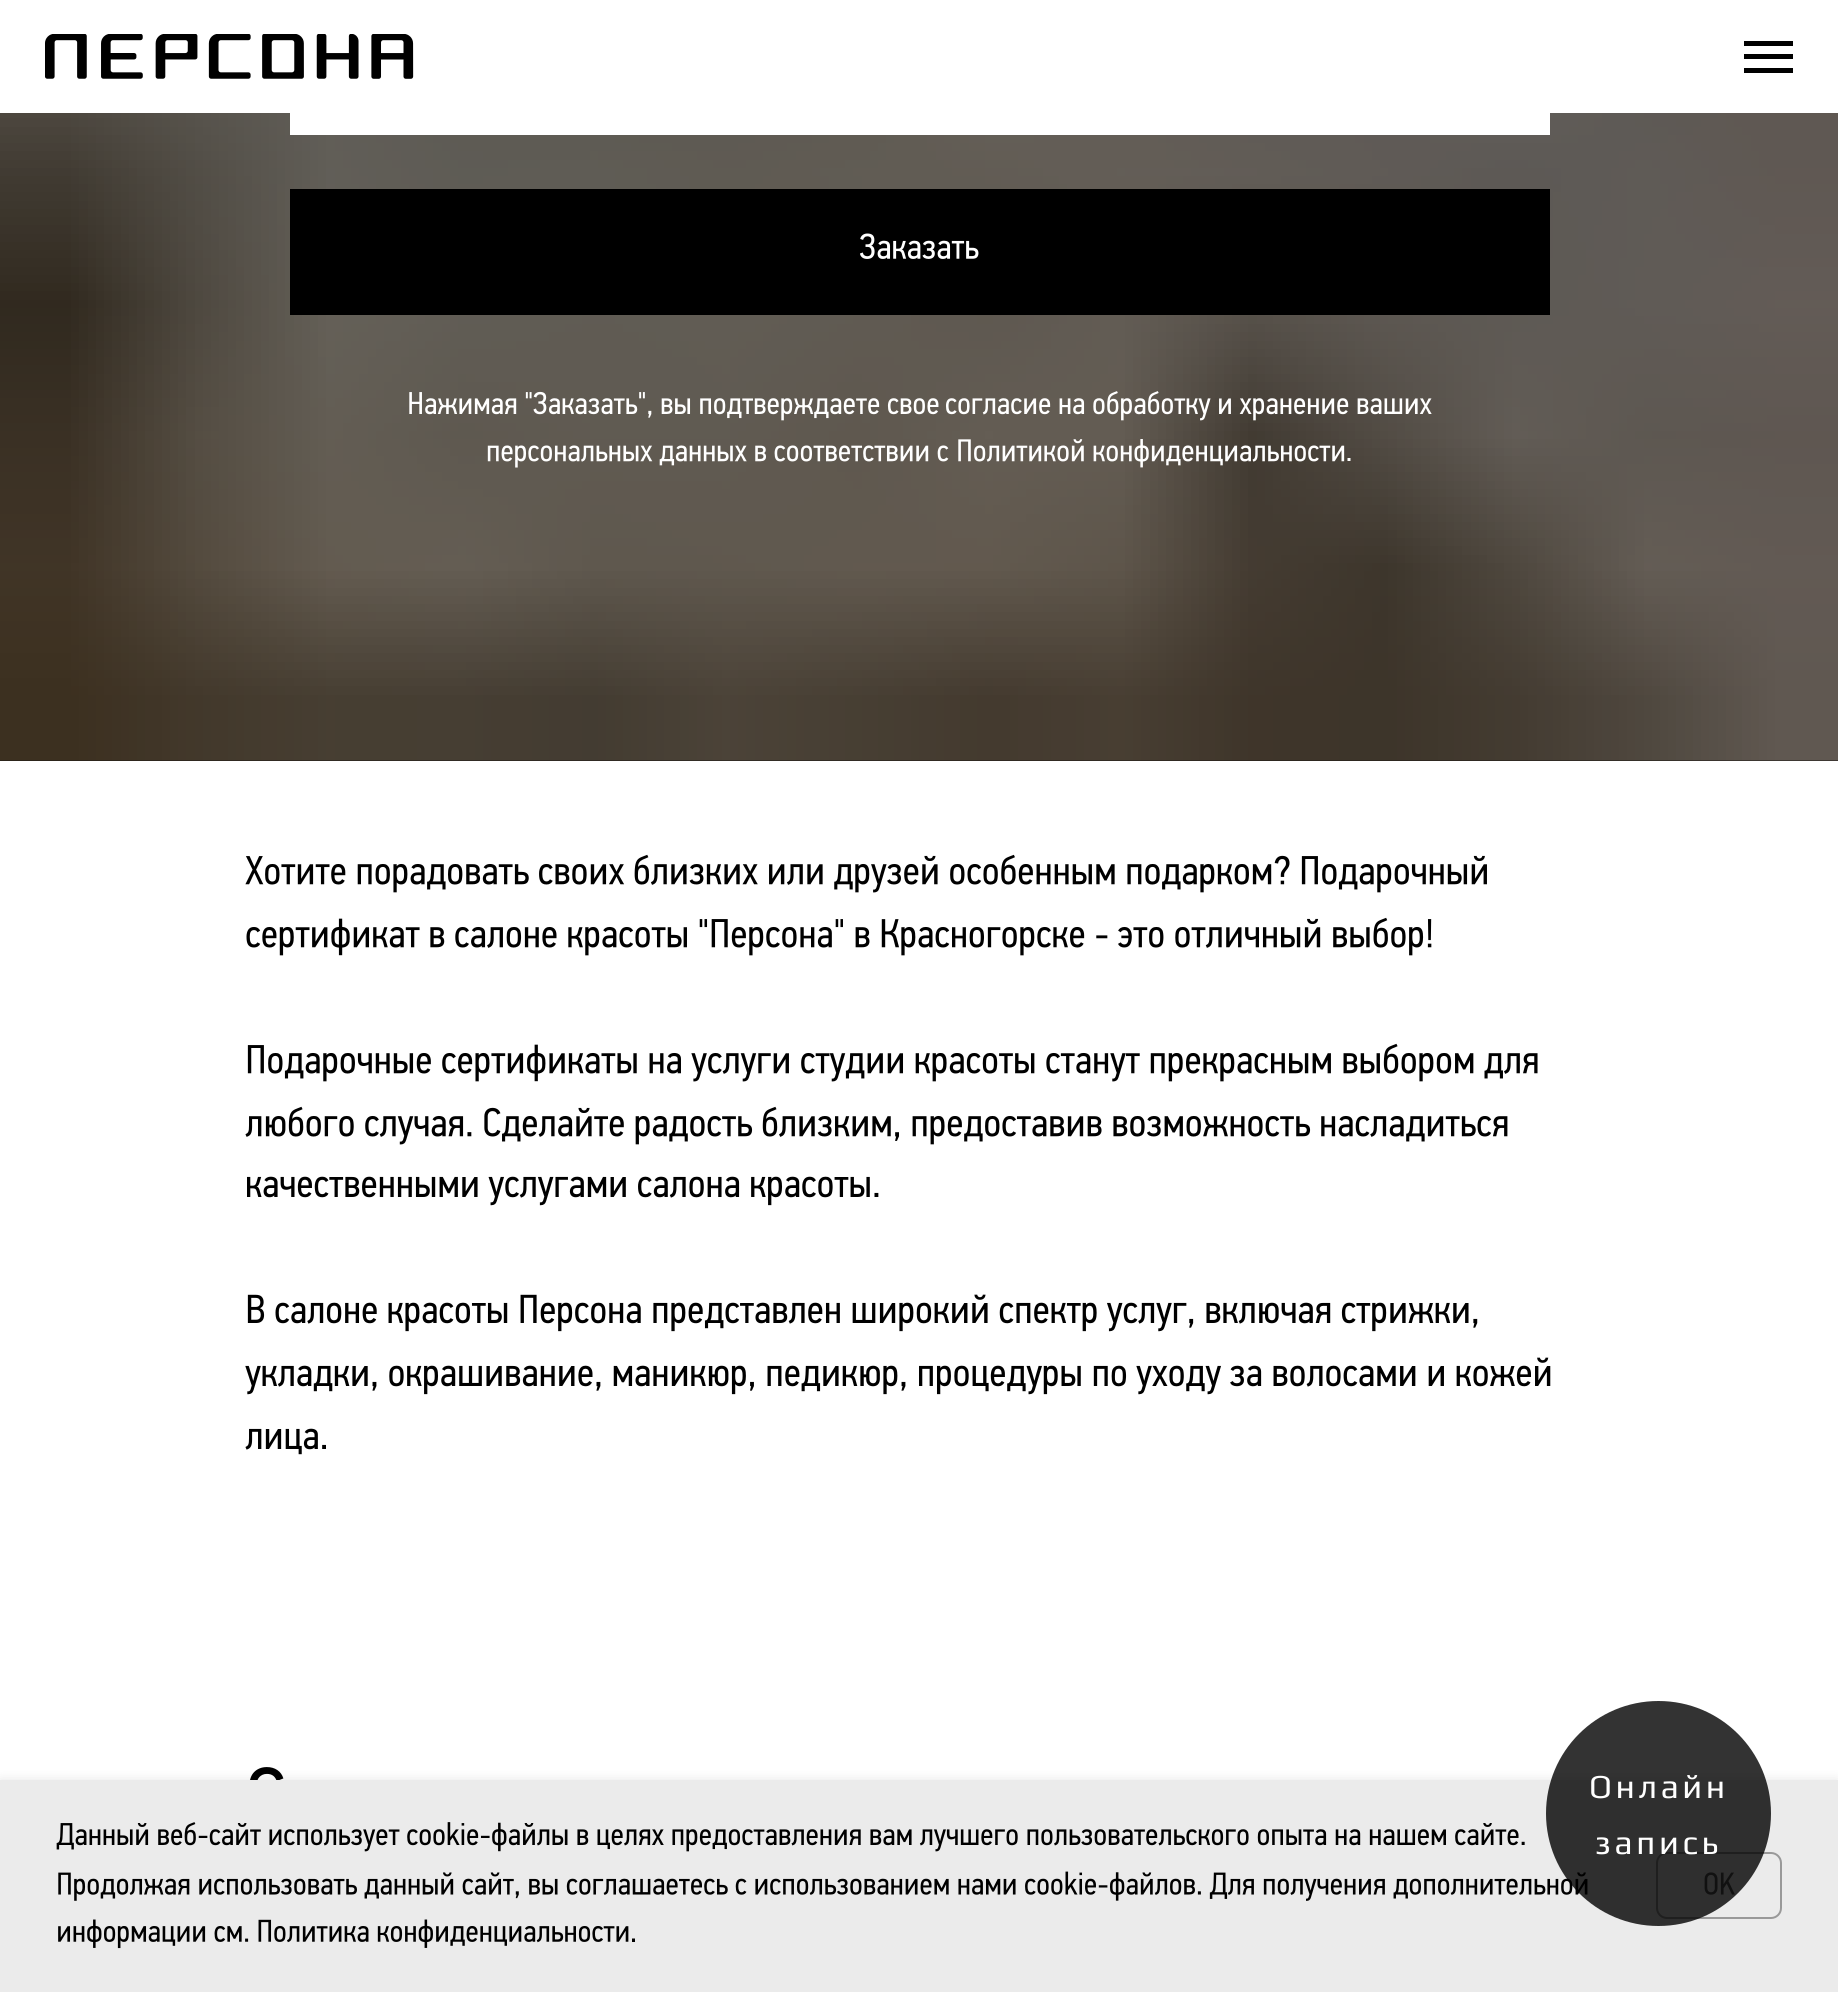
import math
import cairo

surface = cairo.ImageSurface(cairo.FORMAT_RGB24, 1838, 1992)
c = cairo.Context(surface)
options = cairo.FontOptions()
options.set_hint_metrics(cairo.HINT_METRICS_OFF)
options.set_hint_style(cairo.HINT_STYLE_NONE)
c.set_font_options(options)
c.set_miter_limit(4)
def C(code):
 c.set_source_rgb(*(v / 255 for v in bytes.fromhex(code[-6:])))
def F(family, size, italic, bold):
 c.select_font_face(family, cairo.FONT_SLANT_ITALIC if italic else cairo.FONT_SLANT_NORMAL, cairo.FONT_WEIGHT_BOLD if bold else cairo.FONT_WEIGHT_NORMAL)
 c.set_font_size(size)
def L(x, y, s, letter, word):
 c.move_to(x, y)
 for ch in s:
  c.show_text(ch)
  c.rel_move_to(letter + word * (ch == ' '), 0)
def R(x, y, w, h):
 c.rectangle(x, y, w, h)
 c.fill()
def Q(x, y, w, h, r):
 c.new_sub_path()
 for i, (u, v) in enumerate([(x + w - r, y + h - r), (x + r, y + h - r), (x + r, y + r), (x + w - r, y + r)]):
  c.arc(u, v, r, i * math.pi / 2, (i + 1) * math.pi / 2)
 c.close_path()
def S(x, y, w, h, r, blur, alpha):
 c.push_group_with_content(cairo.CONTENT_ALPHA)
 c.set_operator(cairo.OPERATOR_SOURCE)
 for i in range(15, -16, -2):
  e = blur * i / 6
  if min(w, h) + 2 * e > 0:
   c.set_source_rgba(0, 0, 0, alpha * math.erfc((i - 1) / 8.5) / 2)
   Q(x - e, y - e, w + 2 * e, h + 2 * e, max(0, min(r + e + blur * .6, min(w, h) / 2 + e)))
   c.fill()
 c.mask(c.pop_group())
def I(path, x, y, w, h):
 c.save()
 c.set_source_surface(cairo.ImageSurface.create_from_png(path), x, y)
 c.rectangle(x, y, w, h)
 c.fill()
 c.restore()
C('ffffff')
c.paint()
I('1.png',45,34,369,45)
C('000000')
R(1744,41,49,5)
R(1744,54,49,5)
R(1744,68,49,5)
C('1d1814')
R(0,760,1838,1)
I('2.png',0,113,1838,648)
C('ffffff')
R(290,113,1260,22)
C('000000')
R(290,189,1260,126)
I('3.png',860,233,119,26)
I('4.png',409,391,530,30)
I('5.png',946,391,486,30)
I('6.png',487,445,260,23)
I('7.png',755,445,194,17)
I('8.png',958,439,387,29)
C('ffffff')
c.new_path()
c.move_to(1347.5,461)
c.line_to(1347.5,458)
c.line_to(1350.5,458)
c.line_to(1350.5,461)
c.close_path()
c.fill()
I('9.png',245,854,1242,39)
I('10.png',246,917,1186,39)
I('11.png',247,1043,1291,39)
I('12.png',245,1106,1263,39)
I('13.png',247,1176,632,30)
I('14.png',247,1294,1231,38)
I('15.png',245,1357,1306,38)
I('16.png',245,1428,81,27)
I('22.png',250,1767,34,13)
C('000000')
S(0,1780,1838,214,0,5.5,.1)
C('ebebeb')
R(0,1780,1838,212)
I('17.png',56,1822,1469,30)
I('18.png',58,1871,1530,30)
I('19.png',58,1919,191,30)
I('20.png',258,1919,371,29)
C('000000')
c.new_path()
c.move_to(632,1942)
c.line_to(632,1938.5)
c.line_to(635,1938.5)
c.line_to(635,1942)
c.close_path()
c.fill()
Q(1657,1853,124,65,10)
C('999999')
c.stroke()
I('21.png',1704,1872,31,23)
c.set_source_rgba(0,0,0,0.8)
c.arc(1658.5,1813.5,112.5,0,2 * math.pi)
c.fill()
F('Play',33.75,0,0)
C('ffffff')
L(1589,1798,'Онлайн',3.5,0)
L(1595,1854,'запись',3.5,0)
surface.write_to_png('o.png')
